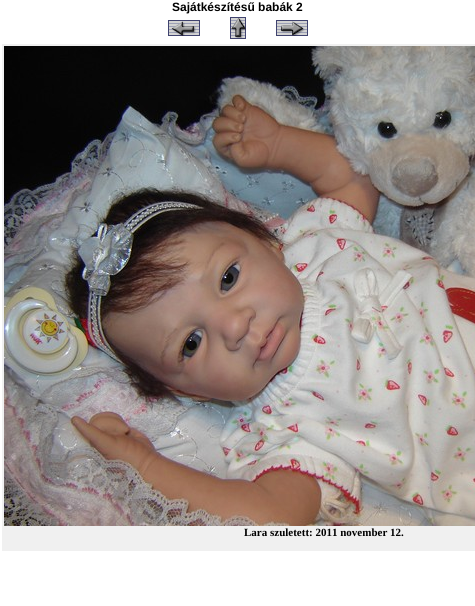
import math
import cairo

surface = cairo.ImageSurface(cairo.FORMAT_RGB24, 475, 606)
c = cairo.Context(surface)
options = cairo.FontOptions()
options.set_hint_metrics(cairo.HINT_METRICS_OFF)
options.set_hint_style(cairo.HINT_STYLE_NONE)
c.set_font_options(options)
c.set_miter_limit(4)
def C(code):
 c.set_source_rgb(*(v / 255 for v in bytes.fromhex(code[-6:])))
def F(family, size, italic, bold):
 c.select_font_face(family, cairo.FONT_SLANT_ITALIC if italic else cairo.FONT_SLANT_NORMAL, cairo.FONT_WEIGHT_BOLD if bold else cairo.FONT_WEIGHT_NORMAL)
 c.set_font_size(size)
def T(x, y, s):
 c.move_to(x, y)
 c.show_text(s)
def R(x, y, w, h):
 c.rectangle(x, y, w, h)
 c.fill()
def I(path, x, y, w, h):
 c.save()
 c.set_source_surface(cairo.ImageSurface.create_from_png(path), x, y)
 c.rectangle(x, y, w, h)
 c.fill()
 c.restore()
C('ffffff')
c.paint()
F('Liberation Sans',12,0,1)
C('000000')
T(172,11,'Sajátkészítésű babák 2')
I('1.png',168,20,32,16)
I('2.png',230,17,16,22)
I('3.png',276,20,32,16)
C('f0f0f0')
R(2,44,473,507)
I('4.png',4,46,471,480)
F('Liberation Serif',11,0,1)
C('000000')
T(244,536,'Lara szuletett: 2011 november 12.')
surface.write_to_png('o.png')
